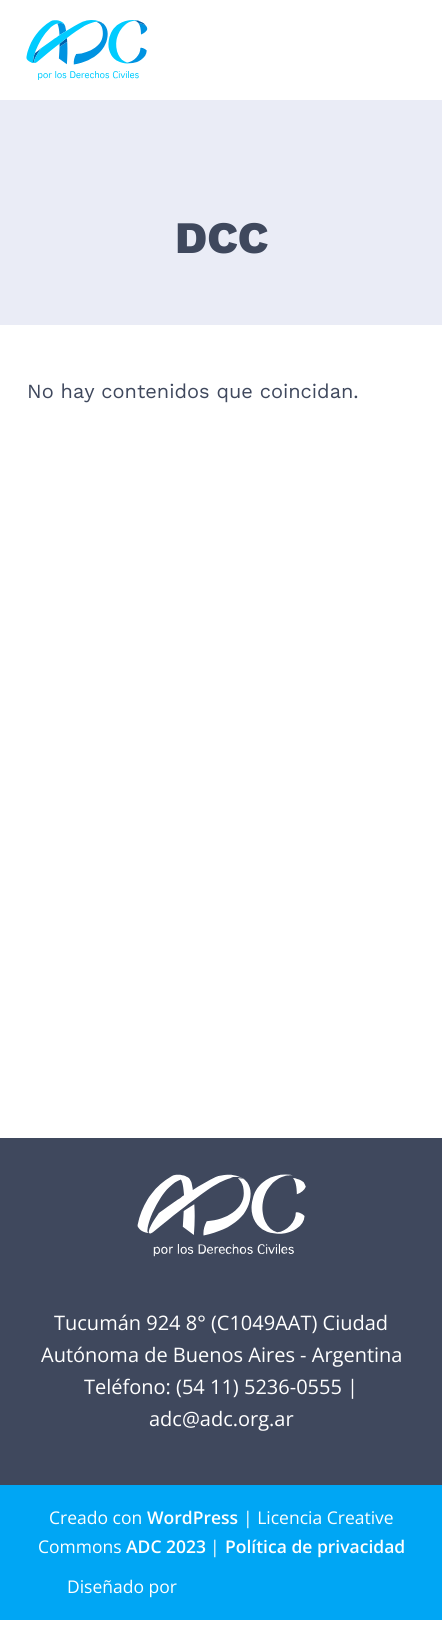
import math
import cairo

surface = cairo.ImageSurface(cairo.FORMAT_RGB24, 442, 1646)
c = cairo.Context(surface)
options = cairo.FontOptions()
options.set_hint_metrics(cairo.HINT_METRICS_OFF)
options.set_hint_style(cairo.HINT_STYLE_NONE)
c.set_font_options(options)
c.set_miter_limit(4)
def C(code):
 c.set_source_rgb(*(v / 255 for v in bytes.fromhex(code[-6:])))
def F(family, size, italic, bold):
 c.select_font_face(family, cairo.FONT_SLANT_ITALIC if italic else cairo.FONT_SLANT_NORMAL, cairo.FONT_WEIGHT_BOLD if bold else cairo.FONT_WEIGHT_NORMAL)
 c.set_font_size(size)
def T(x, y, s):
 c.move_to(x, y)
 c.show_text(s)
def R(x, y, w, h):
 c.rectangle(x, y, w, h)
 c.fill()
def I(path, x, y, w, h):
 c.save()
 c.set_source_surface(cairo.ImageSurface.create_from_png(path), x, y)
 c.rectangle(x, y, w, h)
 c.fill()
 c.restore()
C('ffffff')
c.paint()
I('1.png',26,20,122,60)
C('eaecf6')
R(0,100,442,225)
F('Work Sans ExtraBold',45,0,0)
C('3f485d')
T(175,253,'DCC')
F('Work Sans',20,0,0)
T(27,398,'No hay contenidos que coincidan.')
R(0,1138,442,347)
I('2.png',137,1174,169,83)
F('Open Sans',20,0,0)
C('ffffff')
T(54,1330,'Tucumán 924 8° (C1049AAT) Ciudad')
T(41,1362,'Autónoma de Buenos Aires - Argentina')
T(84,1394,'Teléfono: (54 11) 5236-0555 |')
T(149,1426,'adc@adc.org.ar')
C('00a6f4')
R(0,1485,442,135)
F('Open Sans',17.5,0,0)
C('ffffff')
T(49,1524,'Creado con')
F('Open Sans SemiBold',17.5,0,0)
T(147,1524,'WordPress')
F('Open Sans',17.5,0,0)
T(243,1524,'| Licencia Creative')
T(38,1553,'Commons')
F('Open Sans SemiBold',17.5,0,0)
T(126,1553,'ADC 2023')
F('Open Sans',17.5,0,0)
T(210,1553,'|')
F('Open Sans SemiBold',17.5,0,0)
T(225,1553,'Política de privacidad')
F('Open Sans',17.5,0,0)
T(67,1593,'Diseñado por')
surface.write_to_png('o.png')
